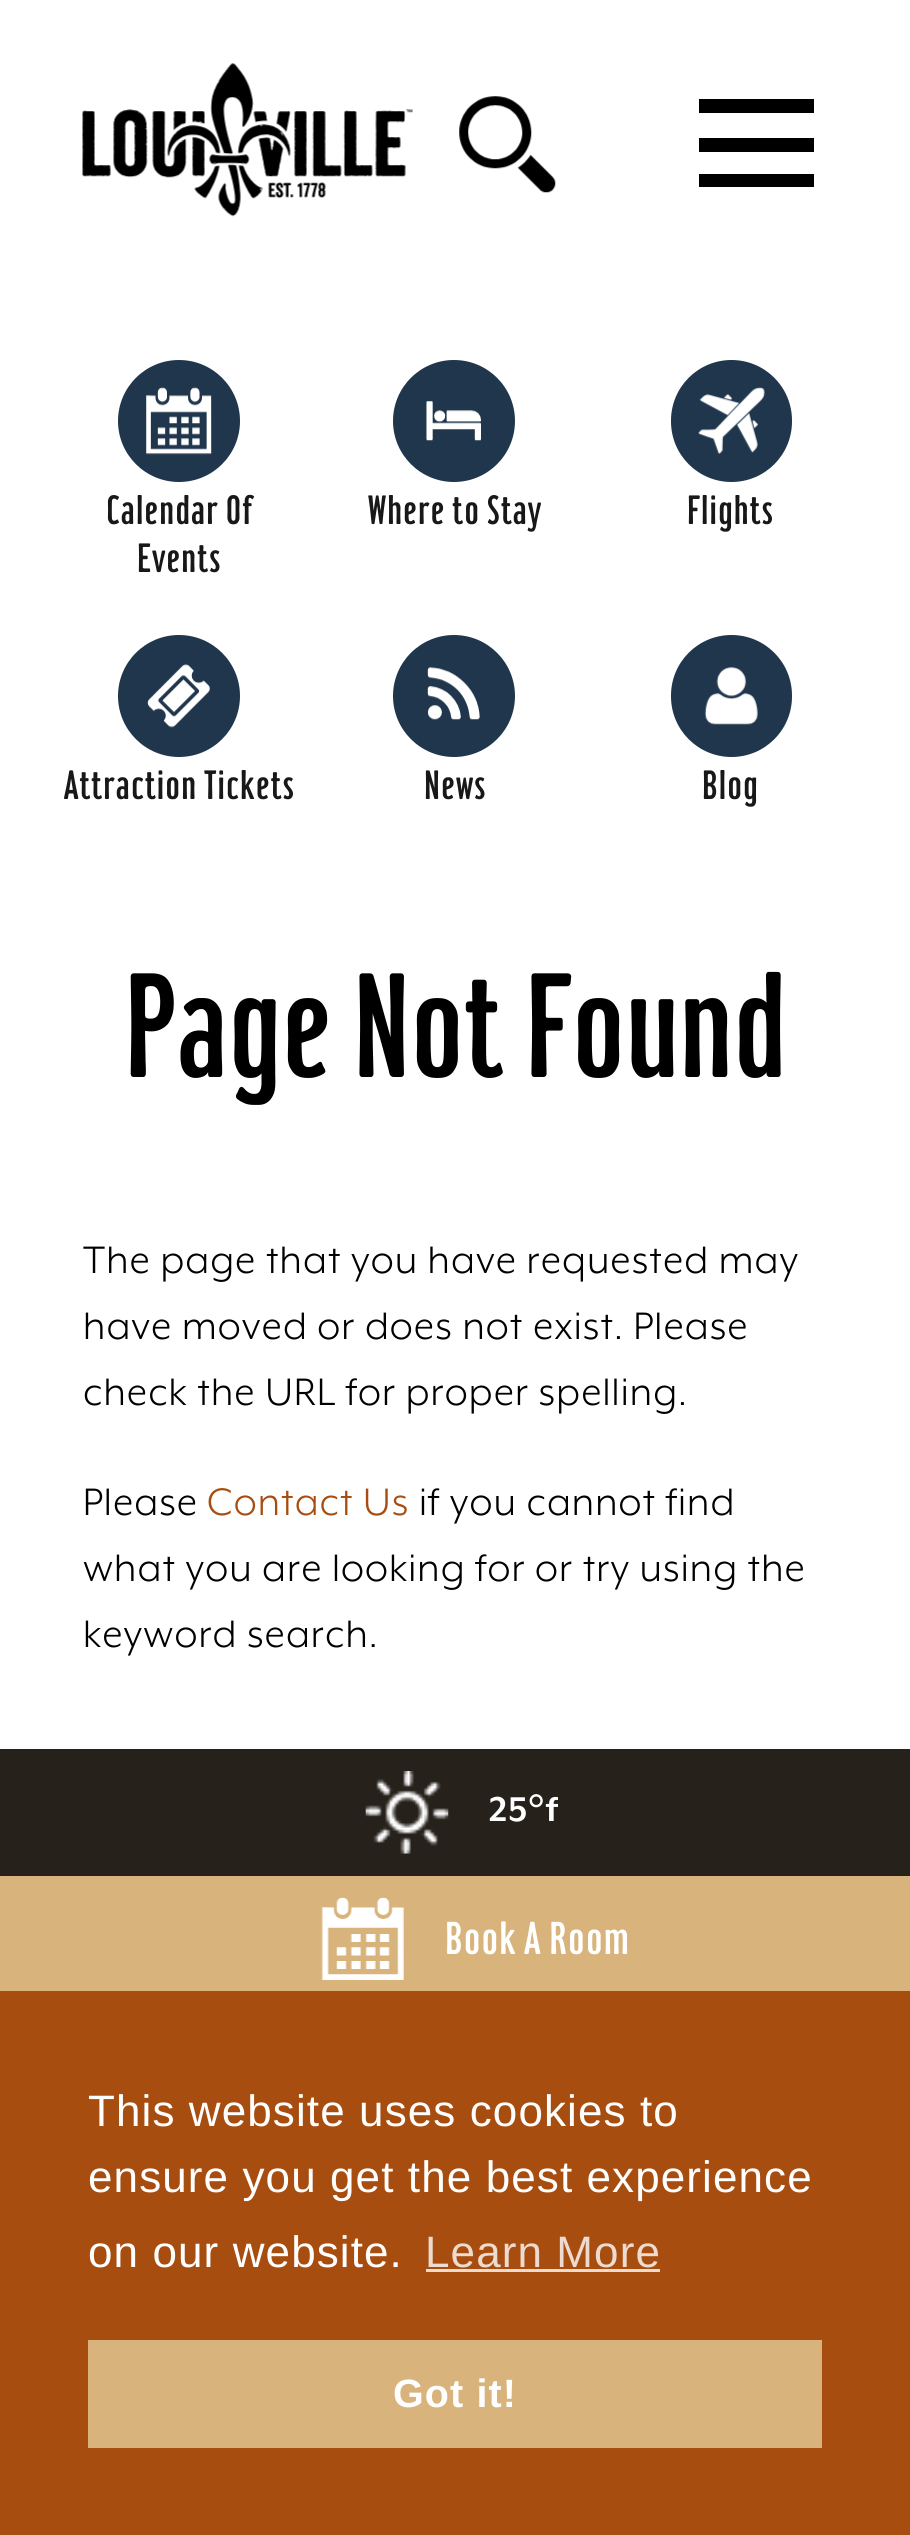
import math
import cairo

surface = cairo.ImageSurface(cairo.FORMAT_RGB24, 910, 2535)
c = cairo.Context(surface)
options = cairo.FontOptions()
options.set_hint_metrics(cairo.HINT_METRICS_OFF)
options.set_hint_style(cairo.HINT_STYLE_NONE)
c.set_font_options(options)
c.set_miter_limit(4)
def C(code):
 c.set_source_rgb(*(v / 255 for v in bytes.fromhex(code[-6:])))
def F(family, size, italic, bold):
 c.select_font_face(family, cairo.FONT_SLANT_ITALIC if italic else cairo.FONT_SLANT_NORMAL, cairo.FONT_WEIGHT_BOLD if bold else cairo.FONT_WEIGHT_NORMAL)
 c.set_font_size(size)
def T(x, y, s):
 c.move_to(x, y)
 c.show_text(s)
def L(x, y, s, letter, word):
 c.move_to(x, y)
 for ch in s:
  c.show_text(ch)
  c.rel_move_to(letter + word * (ch == ' '), 0)
def R(x, y, w, h):
 c.rectangle(x, y, w, h)
 c.fill()
def Q(x, y, w, h, r):
 c.new_sub_path()
 for i, (u, v) in enumerate([(x + w - r, y + h - r), (x + r, y + h - r), (x + r, y + r), (x + w - r, y + r)]):
  c.arc(u, v, r, i * math.pi / 2, (i + 1) * math.pi / 2)
 c.close_path()
def I(path, x, y, w, h):
 c.save()
 c.set_source_surface(cairo.ImageSurface.create_from_png(path), x, y)
 c.rectangle(x, y, w, h)
 c.fill()
 c.restore()
C('ffffff')
c.paint()
I('1.png',82,63,331,154)
I('2.png',459,96,97,97)
C('000000')
R(699,99,115,14)
R(699,138,115,14)
R(699,174,115,13)
C('20364c')
c.arc(179,421,65,0,2 * math.pi)
c.fill_preserve()
C('ffffff')
c.set_line_width(8)
c.stroke()
I('3.png',146,387,66,68)
F('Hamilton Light',44,0,0)
C('181818')
L(106,524,'Calendar Of',1.1,0)
L(137,572,'Events',1.1,0)
C('20364c')
c.new_path()
c.arc(454,421,65,0,2 * math.pi)
c.fill_preserve()
C('ffffff')
c.stroke()
I('4.png',426,401,55,40)
C('181818')
L(368,524,'Where to Stay',1.1,0)
C('20364c')
Q(667,356,129,130,64.5)
c.fill_preserve()
C('ffffff')
c.stroke()
I('5.png',698,387,67,68)
C('181818')
L(687,524,'Flights',1.1,0)
C('20364c')
c.new_path()
c.arc(179,696,65,0,2 * math.pi)
c.fill_preserve()
C('ffffff')
c.stroke()
I('6.png',147,664,63,64)
C('181818')
L(64,799,'Attraction Tickets',1.1,0)
C('20364c')
c.new_path()
c.arc(454,696,65,0,2 * math.pi)
c.fill_preserve()
C('ffffff')
c.stroke()
I('7.png',427,667,53,53)
C('181818')
L(424,799,'News',1.1,0)
C('20364c')
Q(667,631,129,130,64.5)
c.fill_preserve()
C('ffffff')
c.stroke()
I('8.png',704,667,54,58)
C('181818')
L(702,799,'Blog',1.1,0)
F('Hamilton Light',159.5,0,0)
C('000000')
T(124,1077,'Page Not Found')
F('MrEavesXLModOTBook',44,0,0)
L(83,1273,'The page that you have requested may',1.1,0)
L(83,1339,'have moved or does not exist. Please',1.1,0)
L(83,1405,'check the URL for proper spelling.',1.1,0)
L(83,1515,'Please',1.1,0)
C('a84d10')
L(207,1515,'Contact Us',1.1,0)
C('000000')
L(419,1515,'if you cannot find',1.1,0)
L(83,1581,'what you are looking for or try using the',1.1,0)
L(83,1647,'keyword search.',1.1,0)
C('26211b')
R(0,1749,910,127)
I('9.png',365,1771,84,83)
F('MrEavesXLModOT',39.5,0,1)
C('ffffff')
L(489,1821,'25',1.1,0)
F('MrEavesXLModOT',44,0,1)
L(528,1821,'°',1.1,0)
F('MrEavesXLModOT',39.5,0,1)
L(546,1821,'f',1.1,0)
C('d8b47c')
R(0,1876,910,115)
I('10.png',321,1897,83,83)
F('Hamilton Light',49.5,0,0)
C('ffffff')
L(445,1954,'Book A Room',1.1,0)
C('a84d10')
R(0,1991,910,544)
F('Liberation Sans',44,0,0)
C('ffffff')
L(88,2126,'This website uses cookies to',1.1,0)
L(88,2192,'ensure you get the best experience',1.1,0)
L(88,2267,'on our website.',1.1,0)
C('eedbcf')
L(425,2267,'Learn More',1.1,0)
R(426,2269,234,3)
C('d8b47c')
R(88,2340,734,108)
F('Liberation Sans',39.5,0,1)
C('ffffff')
L(393,2407,'Got it!',1.1,0)
surface.write_to_png('o.png')
